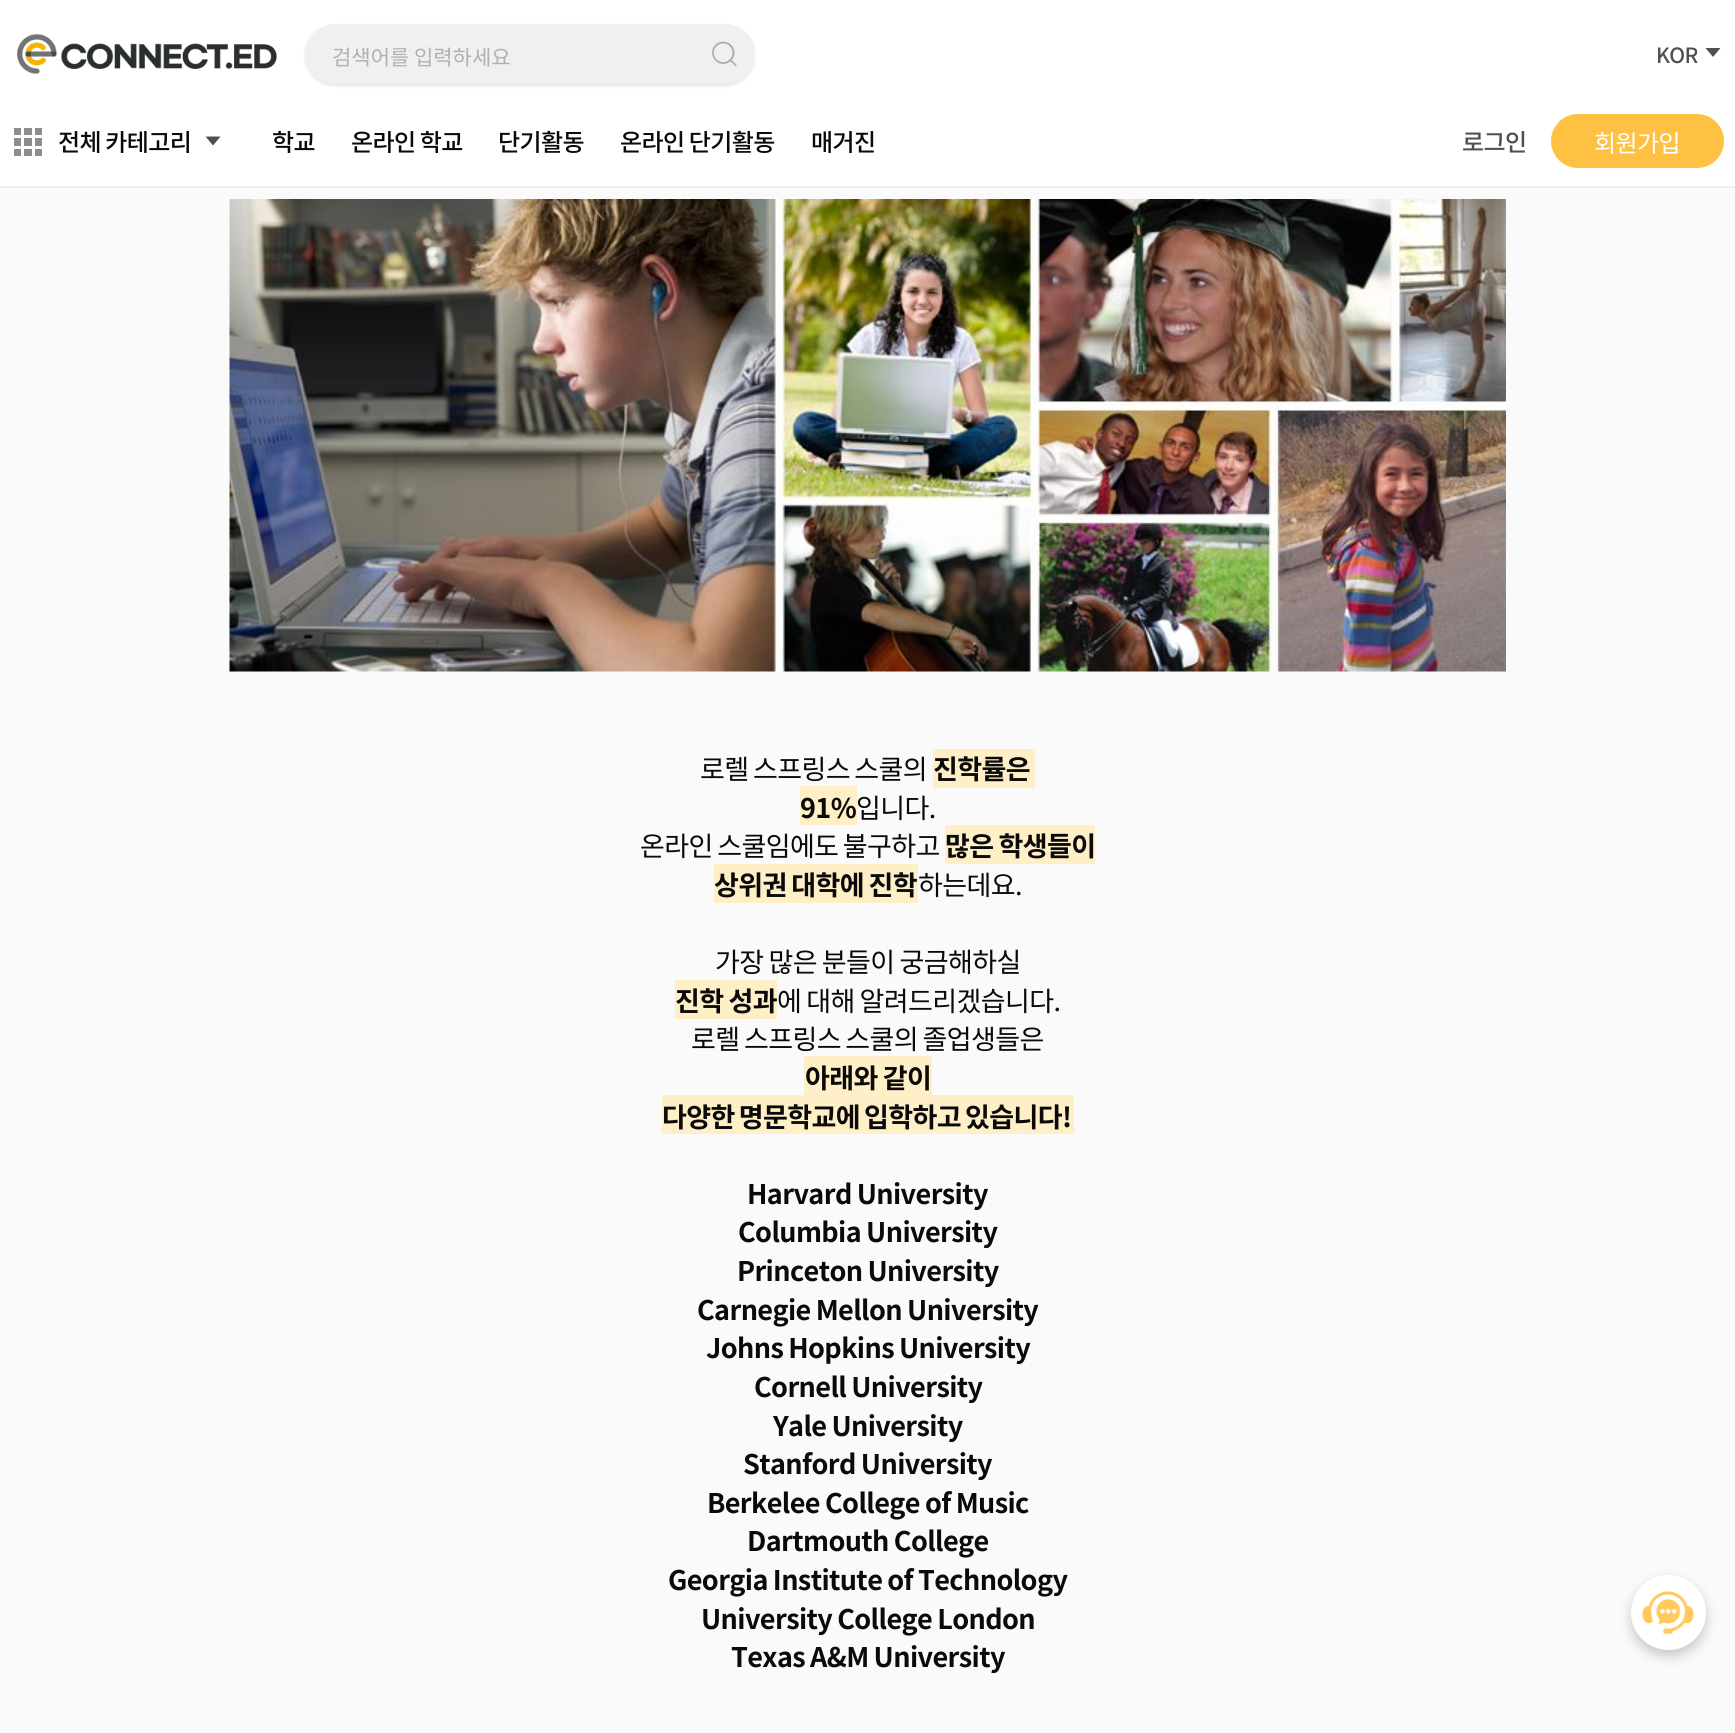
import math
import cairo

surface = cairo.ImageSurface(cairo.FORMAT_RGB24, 1735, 1733)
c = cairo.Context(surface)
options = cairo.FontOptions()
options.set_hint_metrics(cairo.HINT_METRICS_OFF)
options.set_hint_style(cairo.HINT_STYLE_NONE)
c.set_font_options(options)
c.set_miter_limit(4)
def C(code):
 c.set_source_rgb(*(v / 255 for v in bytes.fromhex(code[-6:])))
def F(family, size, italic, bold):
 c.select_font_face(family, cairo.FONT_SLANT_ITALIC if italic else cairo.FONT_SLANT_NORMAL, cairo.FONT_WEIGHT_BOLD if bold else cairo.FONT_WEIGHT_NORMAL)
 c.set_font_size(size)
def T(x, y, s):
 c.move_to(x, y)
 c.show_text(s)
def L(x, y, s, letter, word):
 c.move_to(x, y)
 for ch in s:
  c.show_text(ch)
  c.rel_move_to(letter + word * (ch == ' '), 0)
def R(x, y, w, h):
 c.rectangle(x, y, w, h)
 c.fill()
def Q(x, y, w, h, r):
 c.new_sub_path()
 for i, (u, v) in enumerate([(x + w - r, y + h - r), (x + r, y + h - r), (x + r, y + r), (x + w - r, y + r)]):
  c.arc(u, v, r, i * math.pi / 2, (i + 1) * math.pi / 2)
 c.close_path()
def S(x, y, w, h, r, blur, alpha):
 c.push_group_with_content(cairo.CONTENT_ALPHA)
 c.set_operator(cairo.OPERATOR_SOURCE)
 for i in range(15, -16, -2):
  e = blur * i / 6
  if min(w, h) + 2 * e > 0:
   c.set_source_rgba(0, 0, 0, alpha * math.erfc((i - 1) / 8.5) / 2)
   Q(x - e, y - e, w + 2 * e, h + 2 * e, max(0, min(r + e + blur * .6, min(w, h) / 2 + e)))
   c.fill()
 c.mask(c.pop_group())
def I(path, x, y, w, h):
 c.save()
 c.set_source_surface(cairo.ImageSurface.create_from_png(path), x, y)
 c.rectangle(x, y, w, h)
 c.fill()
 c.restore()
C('fafafa')
c.paint()
C('ffffff')
R(0,0,1735,186)
C('f0f0f0')
R(0,186,1735,2)
I('1.png',16,33,261,42)
C('000000')
S(305,26,450,60,30,1.5,.1)
C('f0f0f0')
Q(306,25,448,58,29)
c.fill_preserve()
c.stroke()
F('Noto Sans KR',21,0,0)
C('b0b0b0')
T(332,65,'검색어를 입력하세요')
I('2.png',712,41,25,25)
F('Noto Sans KR Medium',21,0,0)
C('505050')
L(1656,63,'KOR',-.6,0)
c.new_path()
c.move_to(1713,57)
c.line_to(1705.5,48)
c.line_to(1720.5,48)
c.close_path()
c.fill()
C('8c8c8c')
R(14,128,7,7)
R(24,128,8,7)
R(35,128,7,7)
R(14,138,7,8)
R(24,138,8,8)
R(35,138,7,8)
R(14,149,7,7)
R(24,149,8,7)
R(35,149,7,7)
F('Noto Sans KR Medium',24,0,0)
C('0a0a0a')
L(58,151,'전체 카테고리',-.6,-.5)
C('505050')
c.new_path()
c.move_to(213,145.5)
c.line_to(205.5,136.5)
c.line_to(220.5,136.5)
c.close_path()
c.fill()
C('0a0a0a')
L(272,151,'학교',-.6,0)
L(351,151,'온라인 학교',-.6,-.5)
L(498,151,'단기활동',-.6,0)
L(620,151,'온라인 단기활동',-.6,-.5)
L(811,151,'매거진',-.6,0)
C('505050')
L(1462,151,'로그인',-.6,0)
C('ffc143')
Q(1551,114,173,54,27)
c.fill()
F('Noto Sans KR',24,0,0)
C('ffffff')
L(1594,152,'회원가입',-.6,0)
I('3.png',229,199,1277,473)
F('Noto Sans KR',27,0,0)
C('0a0a0a')
L(700,779,'로렐 스프링스 스쿨의',-.6,-1)
C('ffefc6')
R(933,749,102,39)
F('Noto Sans KR',27,0,1)
C('0a0a0a')
L(933,779,'진학률은',-.6,0)
C('ffefc6')
R(800,786,57,39)
C('0a0a0a')
L(800,818,'91%',-.6,0)
F('Noto Sans KR',27,0,0)
L(856,818,'입니다.',-.6,0)
L(640,856,'온라인 스쿨임에도 불구하고',-.6,-1)
C('ffefc6')
R(945,825,150,39)
F('Noto Sans KR',27,0,1)
C('0a0a0a')
L(945,856,'많은 학생들이',-.6,-.5)
C('ffefc6')
R(714,864,204,39)
C('0a0a0a')
L(714,895,'상위권 대학에 진학',-.6,-1)
F('Noto Sans KR',27,0,0)
L(918,895,'하는데요.',-.6,0)
L(715,972,'가장 많은 분들이 궁금해하실',-.6,-.5)
C('ffefc6')
R(675,980,102,39)
F('Noto Sans KR',27,0,1)
C('0a0a0a')
L(675,1011,'진학 성과',-.6,-.5)
F('Noto Sans KR',27,0,0)
L(777,1011,'에 대해 알려드리겠습니다.',-.6,-.5)
L(691,1049,'로렐 스프링스 스쿨의 졸업생들은',-.6,-1)
C('ffefc6')
R(804,1056,128,39)
F('Noto Sans KR',27,0,1)
C('0a0a0a')
L(805,1088,'아래와 같이',-.6,-.5)
C('ffefc6')
R(662,1095,412,39)
C('0a0a0a')
L(662,1127,'다양한 명문학교에 입학하고 있습니다!',-.6,-1.5)
L(747,1204,'Harvard University',-.6,-.5)
L(738,1242,'Columbia University',-.6,-.5)
L(737,1281,'Princeton University',-.6,-.5)
L(697,1320,'Carnegie Mellon University',-.6,-.5)
L(706,1358,'Johns Hopkins University',-.6,-.5)
L(754,1397,'Cornell University',-.6,-.5)
L(773,1436,'Yale University',-.6,-.5)
L(743,1474,'Stanford University',-.6,-.5)
L(707,1513,'Berkelee College of Music',-.6,-.5)
L(747,1551,'Dartmouth College',-.6,-.5)
L(668,1590,'Georgia Institute of Technology',-.6,-.5)
L(701,1629,'University College London',-.6,-.5)
L(731,1667,'Texas A&M University',-.6,-.5)
C('000000')
S(1631,1581,75,75,37.5,6,.2)
C('ffffff')
c.arc(1668.5,1612.5,37.5,0,2 * math.pi)
c.fill()
I('4.png',1642,1591,52,43)
surface.write_to_png('o.png')
